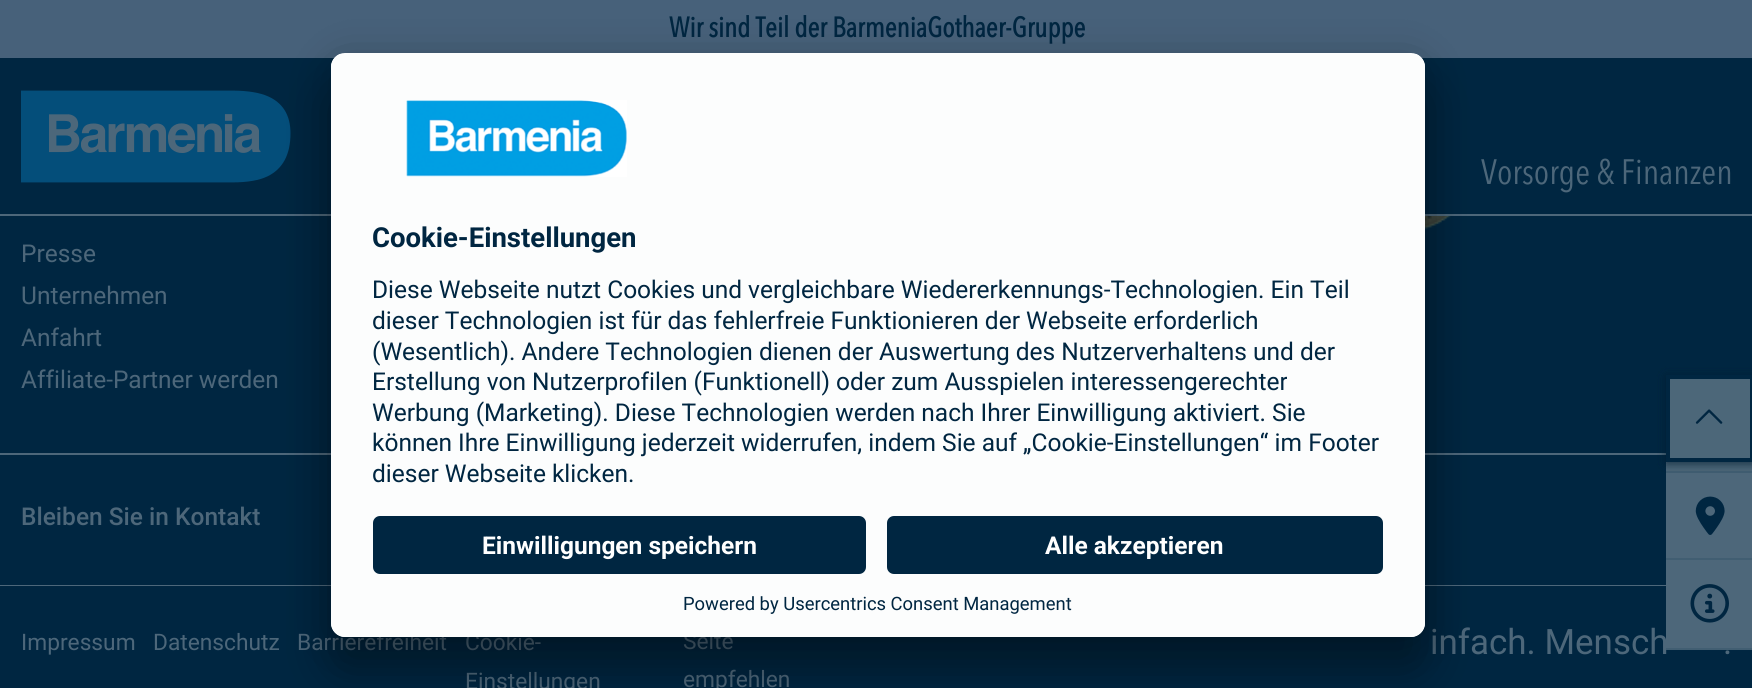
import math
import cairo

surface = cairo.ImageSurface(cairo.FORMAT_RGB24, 1752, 688)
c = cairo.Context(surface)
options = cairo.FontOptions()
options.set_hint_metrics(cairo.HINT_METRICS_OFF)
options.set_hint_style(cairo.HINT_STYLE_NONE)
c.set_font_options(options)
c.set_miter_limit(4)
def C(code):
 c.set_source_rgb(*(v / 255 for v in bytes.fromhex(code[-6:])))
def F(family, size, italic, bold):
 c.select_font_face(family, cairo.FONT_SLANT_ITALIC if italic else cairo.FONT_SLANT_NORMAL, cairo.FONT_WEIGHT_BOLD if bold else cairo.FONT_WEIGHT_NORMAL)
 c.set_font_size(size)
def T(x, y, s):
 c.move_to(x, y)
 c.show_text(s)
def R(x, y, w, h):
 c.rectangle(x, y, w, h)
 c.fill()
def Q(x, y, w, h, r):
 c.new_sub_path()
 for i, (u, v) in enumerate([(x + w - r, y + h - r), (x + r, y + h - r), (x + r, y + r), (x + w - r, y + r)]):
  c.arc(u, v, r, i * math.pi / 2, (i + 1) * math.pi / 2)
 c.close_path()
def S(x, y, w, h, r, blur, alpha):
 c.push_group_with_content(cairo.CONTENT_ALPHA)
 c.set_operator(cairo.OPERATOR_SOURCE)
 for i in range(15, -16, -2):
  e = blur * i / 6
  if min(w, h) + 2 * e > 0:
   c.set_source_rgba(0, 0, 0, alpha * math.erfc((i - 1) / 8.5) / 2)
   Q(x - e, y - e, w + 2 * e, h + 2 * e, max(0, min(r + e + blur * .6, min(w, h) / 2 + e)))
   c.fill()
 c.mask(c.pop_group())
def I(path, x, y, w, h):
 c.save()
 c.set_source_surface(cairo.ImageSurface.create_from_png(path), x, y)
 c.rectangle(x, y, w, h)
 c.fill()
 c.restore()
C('002641')
c.paint()
C('47617a')
R(0,0,1752,58)
F('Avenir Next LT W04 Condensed',28,0,1)
C('002641')
T(669,37,'Wir sind Teil der BarmeniaGothaer-Gruppe')
I('1.png',21,90,270,93)
F('Avenir Next LT W04 Condensed',35,0,0)
C('4d677a')
T(1481,184,'Vorsorge & Finanzen')
R(0,214,1752,2)
R(0,453,1666,2)
I('2.png',1425,216,26,14)
F('Roboto',24.5,0,0)
T(21,262,'Presse')
T(21,304,'Unternehmen')
T(21,346,'Anfahrt')
T(21,388,'Affiliate-Partner werden')
R(0,585,1666,1)
F('Roboto Medium',24.5,0,0)
T(21,525,'Bleiben Sie in Kontakt')
F('Roboto',22.75,0,0)
T(21,650,'Impressum')
T(153,650,'Datenschutz')
T(297,650,'Barrierefreiheit')
T(465,650,'Cookie-')
T(465,689,'Einstellungen')
T(683,649,'Seite')
T(683,687,'empfehlen')
F('Roboto',35,0,0)
T(1430,654,'infach. Mensch')
T(1723,654,'.')
R(1666,462,86,9)
C('415e72')
R(1666,471,86,2)
C('4d677a')
R(1666,473,86,85)
C('001b2e')
S(1666,376,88,88,0,4.5,.4)
S(1666,376,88,88,0,4.5,.4)
C('4c6779')
c.rectangle(1668,377,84,83)
c.fill_preserve()
C('002641')
c.set_line_width(4)
c.stroke()
I('3.png',1695,409,28,15)
C('415e72')
R(1666,648,86,2)
R(1666,558,86,2)
I('4.png',1695,496,30,39)
C('4d677a')
R(1666,560,86,88)
I('5.png',1690,584,39,39)
C('000000')
S(331,88,1094,584,14,24.5,.3)
S(331,61,1094,585,14,23,.22)
C('fcfdfd')
Q(331,53,1094,584,14)
c.fill()
c.save()
Q(331,53,1094,584,14)
c.clip()
c.new_path()
c.move_to(345,53)
c.line_to(1411,53)
c.curve_to(1418.5,53,1425,59.5,1425,67)
c.line_to(1425,502)
c.line_to(331,502)
c.line_to(331,67)
c.curve_to(331,59.5,337.5,53,345,53)
c.close_path()
c.clip()
R(331,54,1094,448)
c.restore()
I('6.png',406,100,221,77)
F('Roboto',27.5,0,1)
C('002641')
T(372,247,'Cookie-Einstellungen')
F('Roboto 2',24.5,0,0)
T(372,298,'Diese Webseite nutzt Cookies und vergleichbare Wiedererkennungs-Technologien. Ein Teil')
T(372,329,'dieser Technologien ist für das fehlerfreie Funktionieren der Webseite erforderlich')
T(372,360,'(Wesentlich). Andere Technologien dienen der Auswertung des Nutzerverhaltens und der')
T(372,390,'Erstellung von Nutzerprofilen (Funktionell) oder zum Ausspielen interessengerechter')
T(372,421,'Werbung (Marketing). Diese Technologien werden nach Ihrer Einwilligung aktiviert. Sie')
T(372,451,'können Ihre Einwilligung jederzeit widerrufen, indem Sie auf „Cookie-Einstellungen“ im Footer')
T(372,482,'dieser Webseite klicken.')
C('fcfdfd')
c.new_path()
c.move_to(331,502)
c.line_to(1425,502)
c.line_to(1425,623)
c.curve_to(1425,630.5,1418.5,637,1411,637)
c.line_to(345,637)
c.curve_to(337.5,637,331,630.5,331,623)
c.close_path()
c.fill()
C('002641')
Q(373,516,493,58,7)
c.fill()
F('Roboto',24.5,0,1)
C('ffffff')
T(482,554,'Einwilligungen speichern')
C('002641')
Q(887,516,496,58,7)
c.fill()
C('ffffff')
T(1045,554,'Alle akzeptieren')
F('Roboto 2',18.4,0,0)
C('002641')
T(683,610,'Powered by Usercentrics Consent Management')
surface.write_to_png('o.png')
